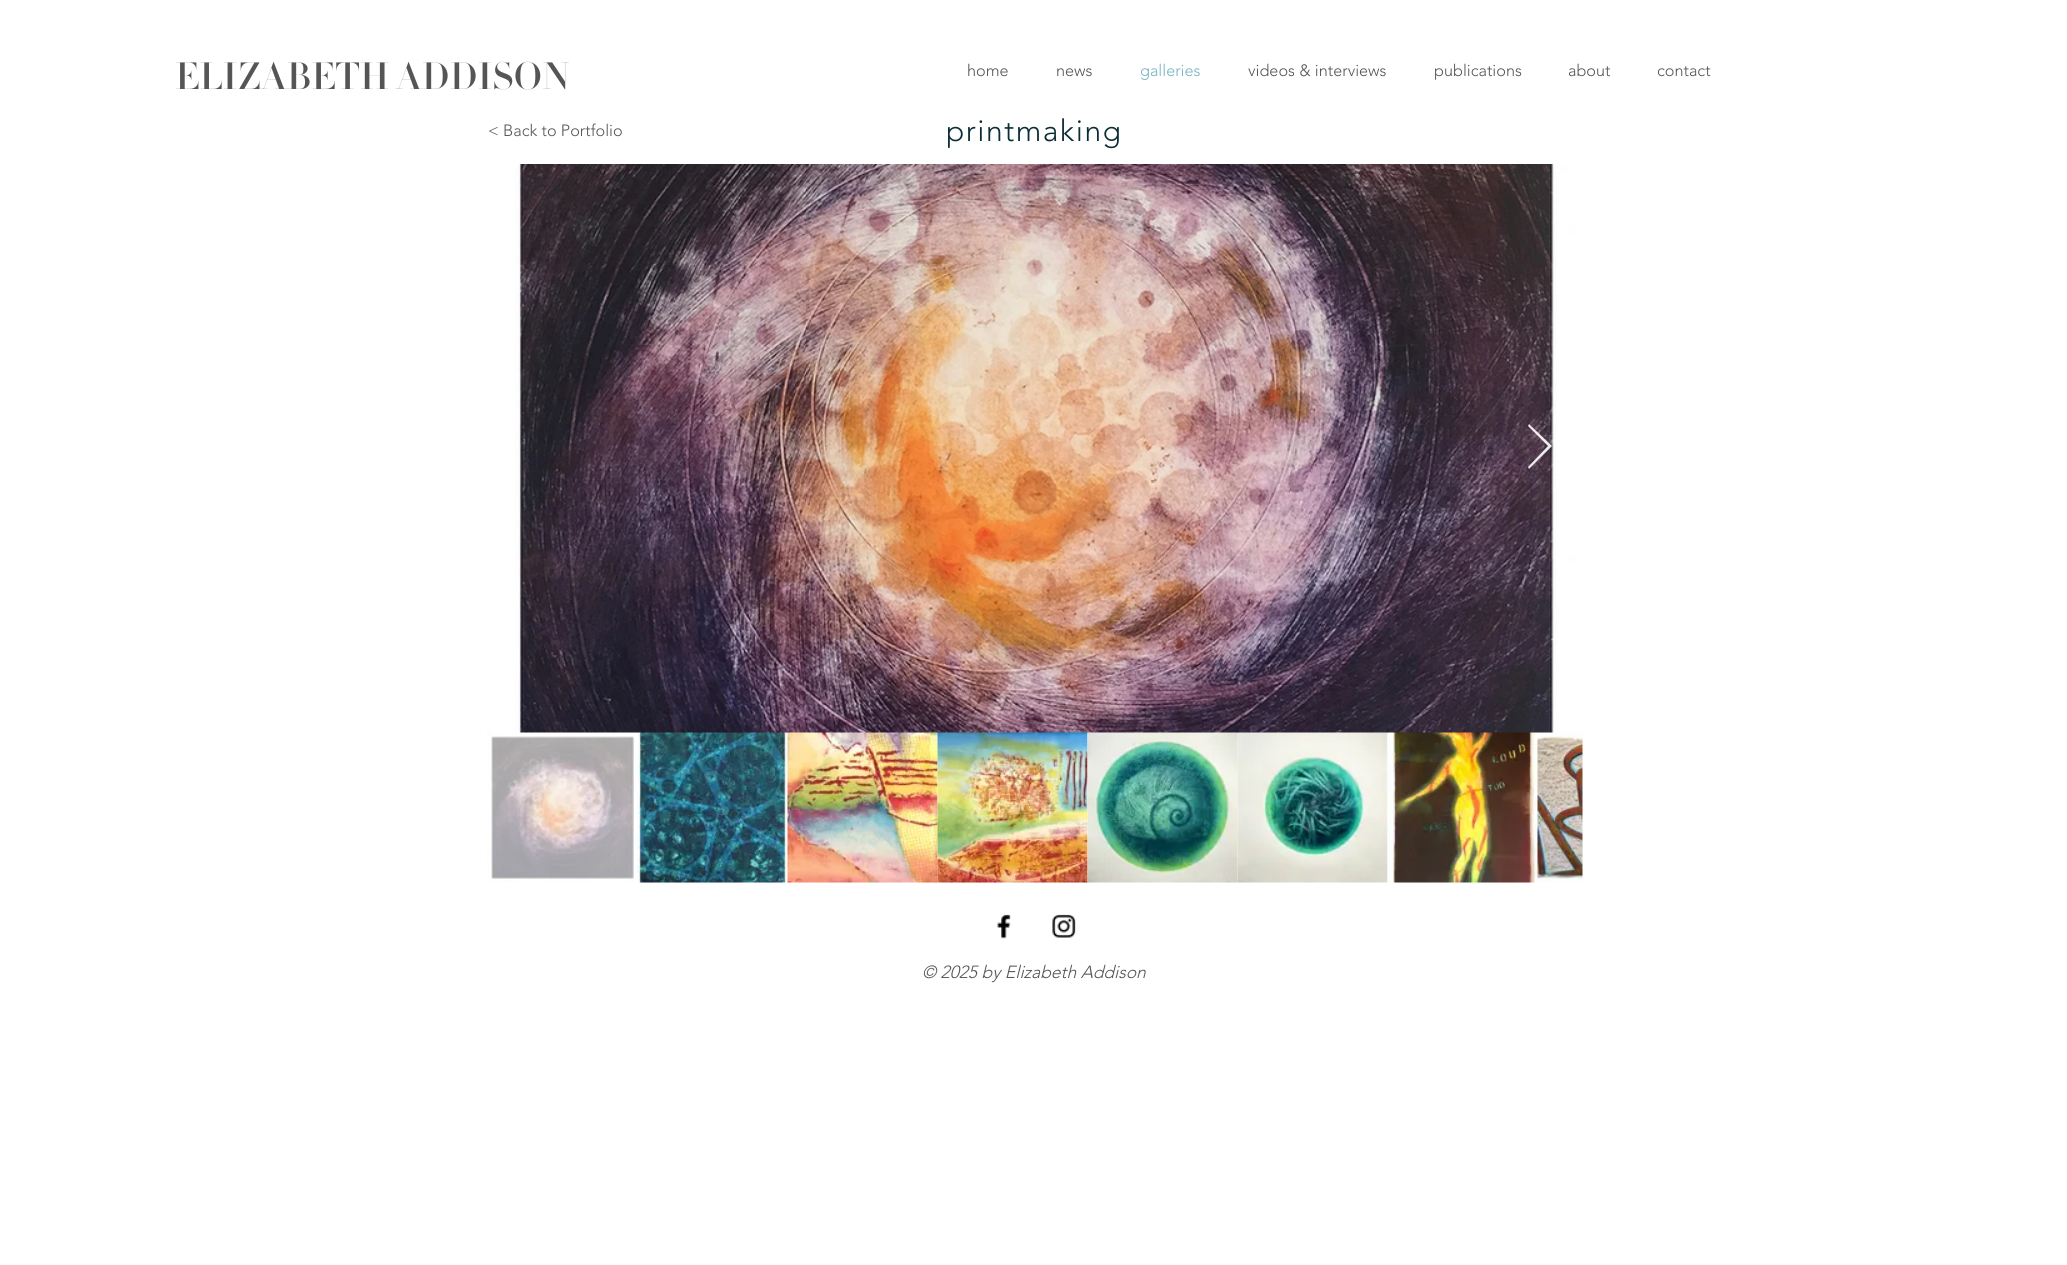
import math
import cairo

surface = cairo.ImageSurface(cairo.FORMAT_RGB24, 2067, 1265)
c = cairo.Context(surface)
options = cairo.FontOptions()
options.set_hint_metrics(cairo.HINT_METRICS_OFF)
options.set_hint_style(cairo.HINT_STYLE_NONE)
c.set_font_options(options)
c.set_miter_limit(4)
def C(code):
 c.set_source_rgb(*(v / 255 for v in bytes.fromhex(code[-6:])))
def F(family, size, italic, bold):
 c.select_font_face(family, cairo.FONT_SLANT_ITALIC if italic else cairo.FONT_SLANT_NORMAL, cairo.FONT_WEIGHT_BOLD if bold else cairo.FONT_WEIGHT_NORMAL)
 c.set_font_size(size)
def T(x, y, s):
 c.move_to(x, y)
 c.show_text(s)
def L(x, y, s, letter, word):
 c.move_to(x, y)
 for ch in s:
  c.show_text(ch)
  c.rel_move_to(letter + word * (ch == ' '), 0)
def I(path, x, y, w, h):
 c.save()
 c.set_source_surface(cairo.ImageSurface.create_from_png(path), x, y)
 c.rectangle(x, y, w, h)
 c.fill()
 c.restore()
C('ffffff')
c.paint()
F('Didot Medium',37.5,0,0)
C('555555')
T(175,89,'ELIZABETH ADDISON')
F('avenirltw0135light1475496 Light',16.25,0,0)
T(967,76,'home')
T(1056,76,'news')
C('76b2c2')
T(1140,76,'galleries')
C('555555')
T(1248,76,'videos & interviews')
T(1434,76,'publications')
T(1568,76,'about')
T(1657,76,'contact')
T(488,136,'< Back to Portfolio')
F('avenirltw0135light1475496 Light',30,0,0)
C('0c2d36')
L(946,141,'printmaking',1.5,0)
I('1.png',488,164,1095,569)
c.set_source_rgba(1,1,1,0.9)
c.new_path()
c.move_to(1528,426)
c.line_to(1529,424)
c.line_to(1552,446)
c.line_to(1529,469)
c.line_to(1528,467)
c.line_to(1548,446)
c.close_path()
c.fill()
I('2.png',487,732,151,151)
I('3.png',637,732,151,151)
I('4.png',787,732,151,151)
I('5.png',937,732,151,151)
I('6.png',1087,732,151,151)
I('7.png',1237,732,151,151)
I('8.png',1387,732,151,151)
I('9.png',1537,732,46,151)
I('10.png',997,914,14,25)
I('11.png',1052,914,24,24)
F('avenirltw0135light1475496 Light',17.5,1,0)
C('555555')
T(922,978,'© 2025 by Elizabeth Addison')
surface.write_to_png('o.png')
